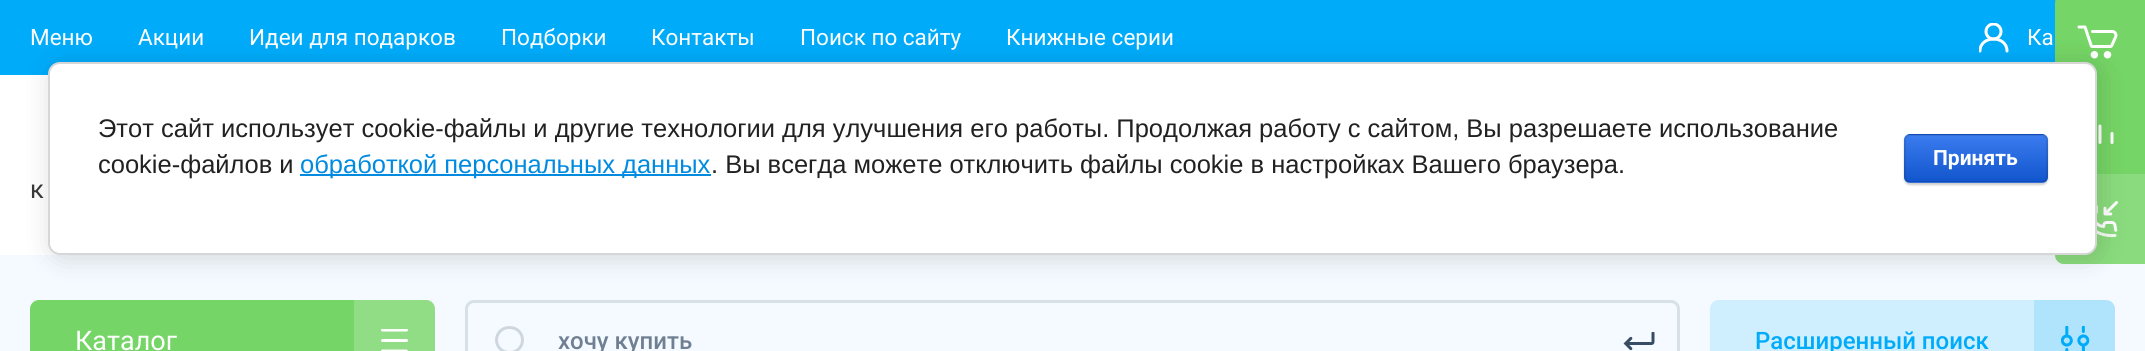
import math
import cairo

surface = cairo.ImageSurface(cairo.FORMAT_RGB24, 2145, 351)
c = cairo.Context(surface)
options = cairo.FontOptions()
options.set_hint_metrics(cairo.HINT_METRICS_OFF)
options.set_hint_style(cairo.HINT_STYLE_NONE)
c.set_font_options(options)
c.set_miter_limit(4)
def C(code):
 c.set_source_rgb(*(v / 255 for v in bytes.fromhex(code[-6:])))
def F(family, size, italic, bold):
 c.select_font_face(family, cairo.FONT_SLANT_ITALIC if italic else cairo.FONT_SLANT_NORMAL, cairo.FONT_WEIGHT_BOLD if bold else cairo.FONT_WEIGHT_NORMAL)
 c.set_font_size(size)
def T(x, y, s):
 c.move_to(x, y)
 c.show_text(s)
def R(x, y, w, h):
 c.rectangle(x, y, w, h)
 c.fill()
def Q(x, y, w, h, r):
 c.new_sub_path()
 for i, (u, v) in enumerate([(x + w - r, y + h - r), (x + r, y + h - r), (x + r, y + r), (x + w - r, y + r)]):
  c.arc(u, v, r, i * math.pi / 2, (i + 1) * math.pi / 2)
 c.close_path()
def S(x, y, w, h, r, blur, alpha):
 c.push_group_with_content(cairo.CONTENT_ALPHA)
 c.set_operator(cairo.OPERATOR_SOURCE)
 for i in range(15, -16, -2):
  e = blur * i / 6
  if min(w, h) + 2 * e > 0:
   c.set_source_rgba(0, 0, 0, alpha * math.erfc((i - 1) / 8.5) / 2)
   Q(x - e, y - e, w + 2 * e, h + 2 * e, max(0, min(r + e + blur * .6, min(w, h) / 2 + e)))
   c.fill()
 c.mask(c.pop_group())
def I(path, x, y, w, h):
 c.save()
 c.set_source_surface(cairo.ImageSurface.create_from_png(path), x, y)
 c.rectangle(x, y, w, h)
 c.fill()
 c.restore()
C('f4faff')
c.paint()
C('00abfa')
R(0,0,2056,75)
F('Roboto',22.5,0,0)
C('ffffff')
T(30,45,'Меню')
T(138,45,'Акции')
T(249,45,'Идеи для подарков')
T(501,45,'Подборки')
T(651,45,'Контакты')
T(800,45,'Поиск по сайту')
T(1006,45,'Книжные серии')
c.save()
c.rectangle(1979,23,30,30)
c.clip()
c.arc(1993.5,31.5,7.5,0,2 * math.pi)
c.set_line_width(3)
c.stroke()
c.new_path()
c.move_to(2007,51)
c.curve_to(2007,35,1980,35,1980,51)
c.set_line_cap(cairo.LINE_CAP_ROUND)
c.stroke()
c.restore()
T(2027,45,'Ка')
R(0,75,60,180)
F('Roboto',25.5,0,0)
C('393939')
T(30,198,'к')
C('75d566')
c.new_path()
c.move_to(2064,-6)
c.line_to(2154,-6)
c.line_to(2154,84)
c.line_to(2064,84)
c.curve_to(2059,84,2055,80,2055,75)
c.line_to(2055,3)
c.curve_to(2055,-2,2059,-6,2064,-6)
c.close_path()
c.fill()
I('1.png',2077,25,41,34)
R(2097,84,48,90)
I('2.png',2098,124,16,20)
c.new_path()
c.move_to(2064,174)
c.line_to(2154,174)
c.line_to(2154,264)
c.line_to(2064,264)
c.curve_to(2059,264,2055,260,2055,255)
c.line_to(2055,183)
c.curve_to(2055,178,2059,174,2064,174)
c.close_path()
c.fill()
c.set_source_rgba(1,1,1,0.15)
c.new_path()
c.move_to(2064,174)
c.line_to(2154,174)
c.line_to(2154,264)
c.line_to(2064,264)
c.curve_to(2059,264,2055,260,2055,255)
c.line_to(2055,183)
c.curve_to(2055,178,2059,174,2064,174)
c.close_path()
c.fill()
I('3.png',2097,201,21,37)
C('75d566')
Q(30,300,405,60,9)
c.fill()
F('Roboto',27,0,0)
C('ffffff')
T(75,350,'Каталог')
c.set_source_rgba(1,1,1,0.2)
c.new_path()
c.move_to(354,300)
c.line_to(426,300)
c.curve_to(431,300,435,304,435,309)
c.line_to(435,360)
c.line_to(354,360)
c.close_path()
c.fill()
I('4.png',381,329,27,22)
Q(466.5,301.5,1212,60,7.5)
C('d8e0e8')
c.set_line_width(3)
c.stroke()
Q(496.5,327.5,26,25,12.5)
C('ced7e0')
c.stroke()
F('Roboto Medium',24,0,0)
C('708093')
T(558,349,'хочу купить')
I('5.png',1623,332,32,19)
C('cfeefe')
Q(1710,300,405,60,9)
c.fill()
C('00abfa')
T(1755,349,'Расширенный поиск')
c.set_source_rgba(0,0.671,0.98,0.15)
c.new_path()
c.move_to(2034,300)
c.line_to(2106,300)
c.curve_to(2111,300,2115,304,2115,309)
c.line_to(2115,351)
c.curve_to(2115,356,2111,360,2106,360)
c.line_to(2034,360)
c.close_path()
c.fill()
I('6.png',2061,326,29,25)
C('000000')
S(51,65,2049,193,12,13.5,.14)
C('ffffff')
Q(49,63,2047,191,11)
c.fill_preserve()
C('d6d6d6')
c.set_line_width(2)
c.stroke()
F('Liberation Sans',25.5,0,0)
C('212121')
T(98,137,'Этот сайт использует cookie-файлы и другие технологии для улучшения его работы. Продолжая работу с сайтом, Вы разрешаете использование')
T(98,173,'cookie-файлов и')
C('008be1')
R(300,174,411,2)
T(300,173,'обработкой персональных данных')
C('212121')
T(711,173,'. Вы всегда можете отключить файлы cookie в настройках Вашего браузера.')
C('000000')
S(1904,135,144,50,6,1,.2)
c.save()
Q(1904,134,144,49,6)
c.clip()
gradient = cairo.LinearGradient(1976,88,1976,135)
gradient.add_color_stop_rgba(0,0.231,0.486,0.937,1)
gradient.add_color_stop_rgba(1,0.067,0.333,0.8,1)
c.set_source(gradient)
R(1904,134,144,1)
gradient = cairo.LinearGradient(1976,135,1976,182)
gradient.add_color_stop_rgba(0,0.231,0.486,0.937,1)
gradient.add_color_stop_rgba(1,0.067,0.333,0.8,1)
c.set_source(gradient)
R(1904,135,144,47)
gradient = cairo.LinearGradient(1976,182,1976,228)
gradient.add_color_stop_rgba(0,0.231,0.486,0.937,1)
gradient.add_color_stop_rgba(1,0.067,0.333,0.8,1)
c.set_source(gradient)
R(1904,182,144,1)
c.restore()
Q(1905,135,142,47,5)
c.set_source_rgba(0,0,0,0.1)
c.stroke()
F('Roboto',21,0,1)
C('ffffff')
T(1933,165,'Принять')
surface.write_to_png('o.png')
